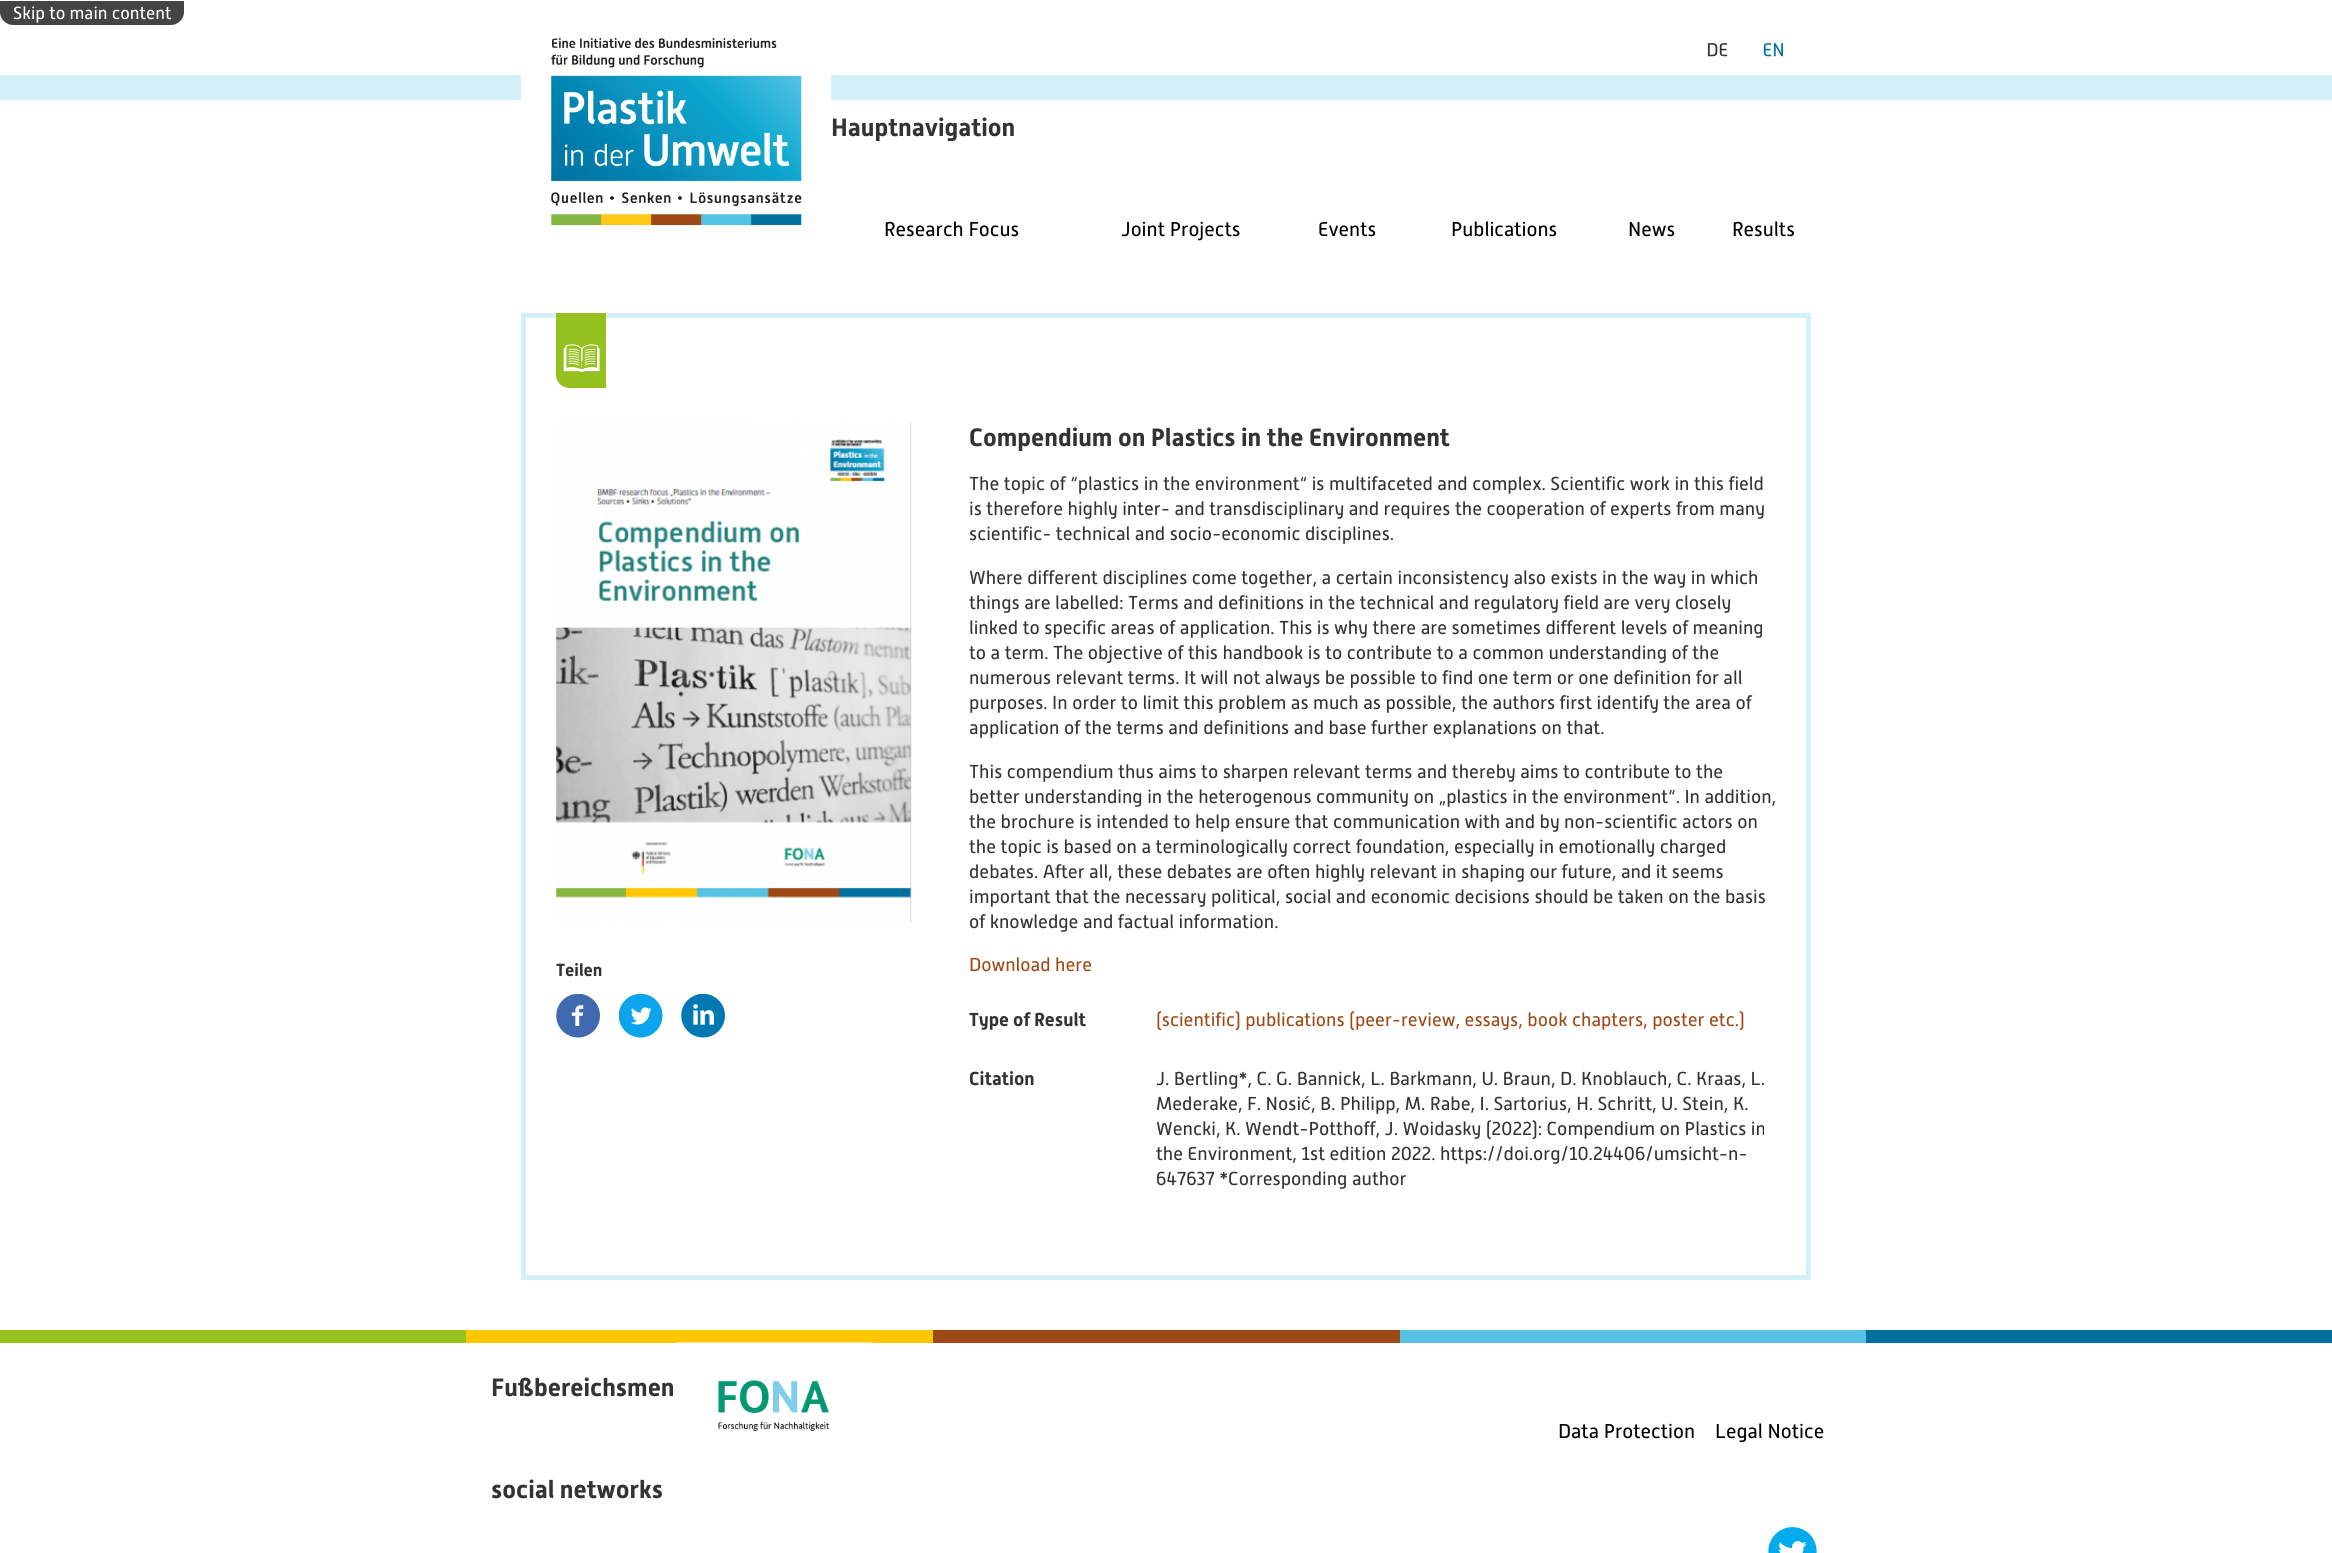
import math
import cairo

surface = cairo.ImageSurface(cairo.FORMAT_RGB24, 2332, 1553)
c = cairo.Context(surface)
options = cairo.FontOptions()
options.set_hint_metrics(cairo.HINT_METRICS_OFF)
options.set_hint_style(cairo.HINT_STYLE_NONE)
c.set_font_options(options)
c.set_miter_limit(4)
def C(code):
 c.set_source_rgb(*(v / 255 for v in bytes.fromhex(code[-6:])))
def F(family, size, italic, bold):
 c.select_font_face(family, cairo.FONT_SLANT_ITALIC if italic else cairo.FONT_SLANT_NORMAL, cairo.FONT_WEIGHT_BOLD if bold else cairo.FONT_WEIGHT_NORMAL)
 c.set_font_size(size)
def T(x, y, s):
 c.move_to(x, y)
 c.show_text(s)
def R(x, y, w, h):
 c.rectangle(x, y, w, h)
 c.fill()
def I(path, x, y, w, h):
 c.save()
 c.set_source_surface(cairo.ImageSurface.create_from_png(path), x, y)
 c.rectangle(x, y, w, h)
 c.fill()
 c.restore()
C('ffffff')
c.paint()
C('444444')
c.new_path()
c.move_to(0,1)
c.line_to(184,1)
c.line_to(184,12)
c.curve_to(184,19,178,25,171,25)
c.line_to(13,25)
c.curve_to(6,25,0,19,0,12)
c.close_path()
c.fill()
F('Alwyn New',17.6,0,0)
C('ffffff')
T(13,19,'Skip to main content')
C('d4f0f8')
R(0,75,2332,25)
C('ffffff')
R(521,75,310,25)
I('1.png',551,38,251,187)
I('2.png',1707,43,21,14)
I('3.png',1763,43,20,14)
F('Alwyn New',25,0,1)
C('333333')
T(831,136,'Hauptnavigation')
F('Alwyn New',20,0,0)
C('000000')
T(884,236,'Research Focus')
T(1121,236,'Joint Projects')
T(1318,236,'Events')
T(1451,236,'Publications')
T(1628,236,'News')
T(1732,236,'Results')
c.rectangle(523.5,315.5,1285,962)
C('d4f0f8')
c.set_line_width(5)
c.stroke()
C('95c11f')
c.new_path()
c.move_to(556,313)
c.line_to(606,313)
c.line_to(606,388)
c.line_to(569,388)
c.curve_to(562,388,556,382,556,375)
c.close_path()
c.fill()
I('4.png',563,344,37,28)
I('5.png',556,422,356,501)
F('Alwyn New',17.5,0,1)
C('333333')
T(556,976,'Teilen')
I('6.png',556,994,44,44)
I('7.png',619,994,44,44)
I('8.png',681,994,44,44)
F('Alwyn New',25,0,1)
T(969,446,'Compendium on Plastics in the Environment')
F('Alwyn New',18.75,0,0)
T(969,490,'The topic of “plastics in the environment“ is multifaceted and complex. Scientific work in this field')
T(969,515,'is therefore highly inter- and transdisciplinary and requires the cooperation of experts from many')
T(969,540,'scientific- technical and socio-economic disciplines.')
T(969,584,'Where different disciplines come together, a certain inconsistency also exists in the way in which')
T(969,609,'things are labelled: Terms and definitions in the technical and regulatory field are very closely')
T(969,634,'linked to specific areas of application. This is why there are sometimes different levels of meaning')
T(969,659,'to a term. The objective of this handbook is to contribute to a common understanding of the')
T(969,684,'numerous relevant terms. It will not always be possible to find one term or one definition for all')
T(969,709,'purposes. In order to limit this problem as much as possible, the authors first identify the area of')
T(969,734,'application of the terms and definitions and base further explanations on that.')
T(969,778,'This compendium thus aims to sharpen relevant terms and thereby aims to contribute to the')
T(969,803,'better understanding in the heterogenous community on „plastics in the environment“. In addition,')
T(969,828,'the brochure is intended to help ensure that communication with and by non-scientific actors on')
T(969,853,'the topic is based on a terminologically correct foundation, especially in emotionally charged')
T(969,878,'debates. After all, these debates are often highly relevant in shaping our future, and it seems')
T(969,903,'important that the necessary political, social and economic decisions should be taken on the basis')
T(969,928,'of knowledge and factual information.')
C('9e4915')
T(969,971,'Download here')
F('Alwyn New',18.75,0,1)
C('333333')
T(969,1026,'Type of Result')
F('Alwyn New',18.75,0,0)
C('9e4915')
T(1156,1026,'(scientific) publications (peer-review, essays, book chapters, poster etc.)')
F('Alwyn New',18.75,0,1)
C('333333')
T(969,1085,'Citation')
F('Alwyn New',18.75,0,0)
T(1156,1085,'J. Bertling*, C. G. Bannick, L. Barkmann, U. Braun, D. Knoblauch, C. Kraas, L.')
T(1156,1110,'Mederake, F. Nosi')
F('Liberation Sans',18.75,0,0)
T(1301,1110,'ć')
F('Alwyn New',18.75,0,0)
T(1311,1110,', B. Philipp, M. Rabe, I. Sartorius, H. Schritt, U. Stein, K.')
T(1156,1135,'Wencki, K. Wendt-Potthoff, J. Woidasky (2022): Compendium on Plastics in')
T(1156,1160,'the Environment, 1st edition 2022. https://doi.org/10.24406/umsicht-n-')
T(1156,1185,'647637 *Corresponding author')
C('95c11f')
R(0,1330,466,13)
C('fec700')
R(466,1330,467,13)
C('9e4915')
R(933,1330,467,13)
C('55c2e4')
R(1400,1330,466,13)
C('00709f')
R(1866,1330,466,13)
I('9.png',676,1342,196,89)
F('Alwyn New',25,0,1)
C('333333')
T(491,1396,'Fußbereichsmen')
F('Alwyn New',20,0,0)
C('000000')
T(1558,1438,'Data Protection')
T(1715,1438,'Legal Notice')
F('Alwyn New',25,0,1)
C('333333')
T(491,1498,'social networks')
I('10.png',1768,1527,49,26)
surface.write_to_png('o.png')
